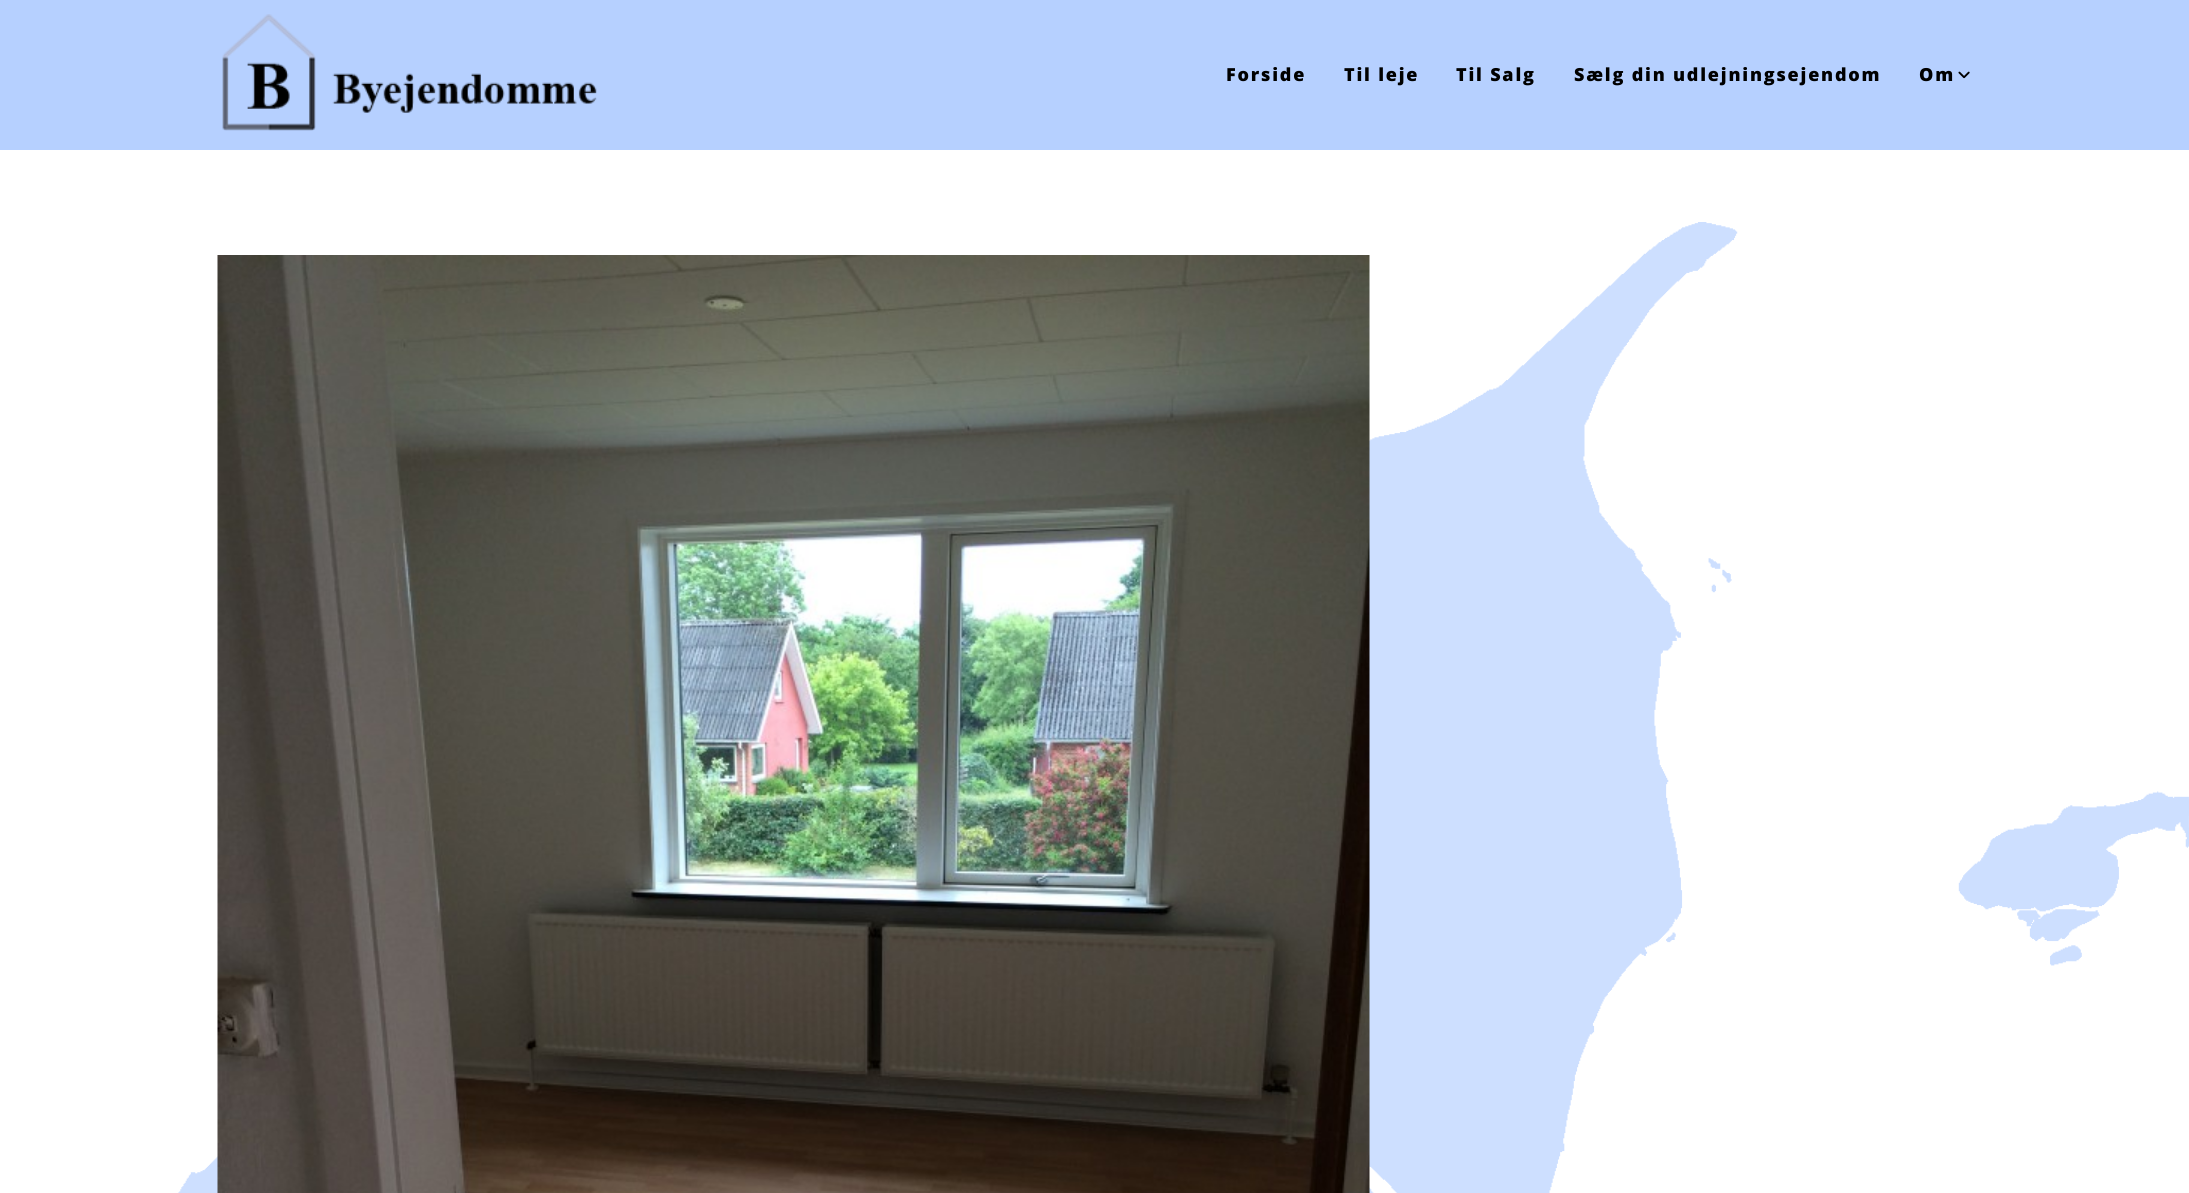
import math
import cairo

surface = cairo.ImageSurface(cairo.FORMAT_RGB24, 2189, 1193)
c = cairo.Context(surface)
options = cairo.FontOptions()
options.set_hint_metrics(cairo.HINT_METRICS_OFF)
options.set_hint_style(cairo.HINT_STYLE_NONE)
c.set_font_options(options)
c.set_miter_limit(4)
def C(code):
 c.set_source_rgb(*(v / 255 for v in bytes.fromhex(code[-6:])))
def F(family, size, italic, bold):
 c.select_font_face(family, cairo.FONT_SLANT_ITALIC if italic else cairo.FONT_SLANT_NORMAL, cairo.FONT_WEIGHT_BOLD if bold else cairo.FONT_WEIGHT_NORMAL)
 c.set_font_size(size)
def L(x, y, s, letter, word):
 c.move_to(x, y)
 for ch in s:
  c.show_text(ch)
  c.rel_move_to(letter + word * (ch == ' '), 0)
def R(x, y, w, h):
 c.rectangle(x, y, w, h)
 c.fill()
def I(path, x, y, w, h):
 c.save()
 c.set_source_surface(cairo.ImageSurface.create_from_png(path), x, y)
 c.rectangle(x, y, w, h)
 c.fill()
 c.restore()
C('ffffff')
c.paint()
C('b6d0ff')
R(0,0,2189,150)
I('1.png',222,14,375,117)
F('Open Sans ExtraBold',18,0,0)
C('000000')
L(1226,81,'Forside',1.8,0)
L(1344,81,'Til leje',1.8,0)
L(1456,81,'Til Salg',1.8,0)
L(1574,81,'Sælg din udlejningsejendom',1.8,0)
L(1919,81,'Om',1.8,0)
I('2.png',1958,71,12,8)
I('3.png',178,222,2011,971)
I('4.png',217,255,1153,938)
surface.write_to_png('o.png')
